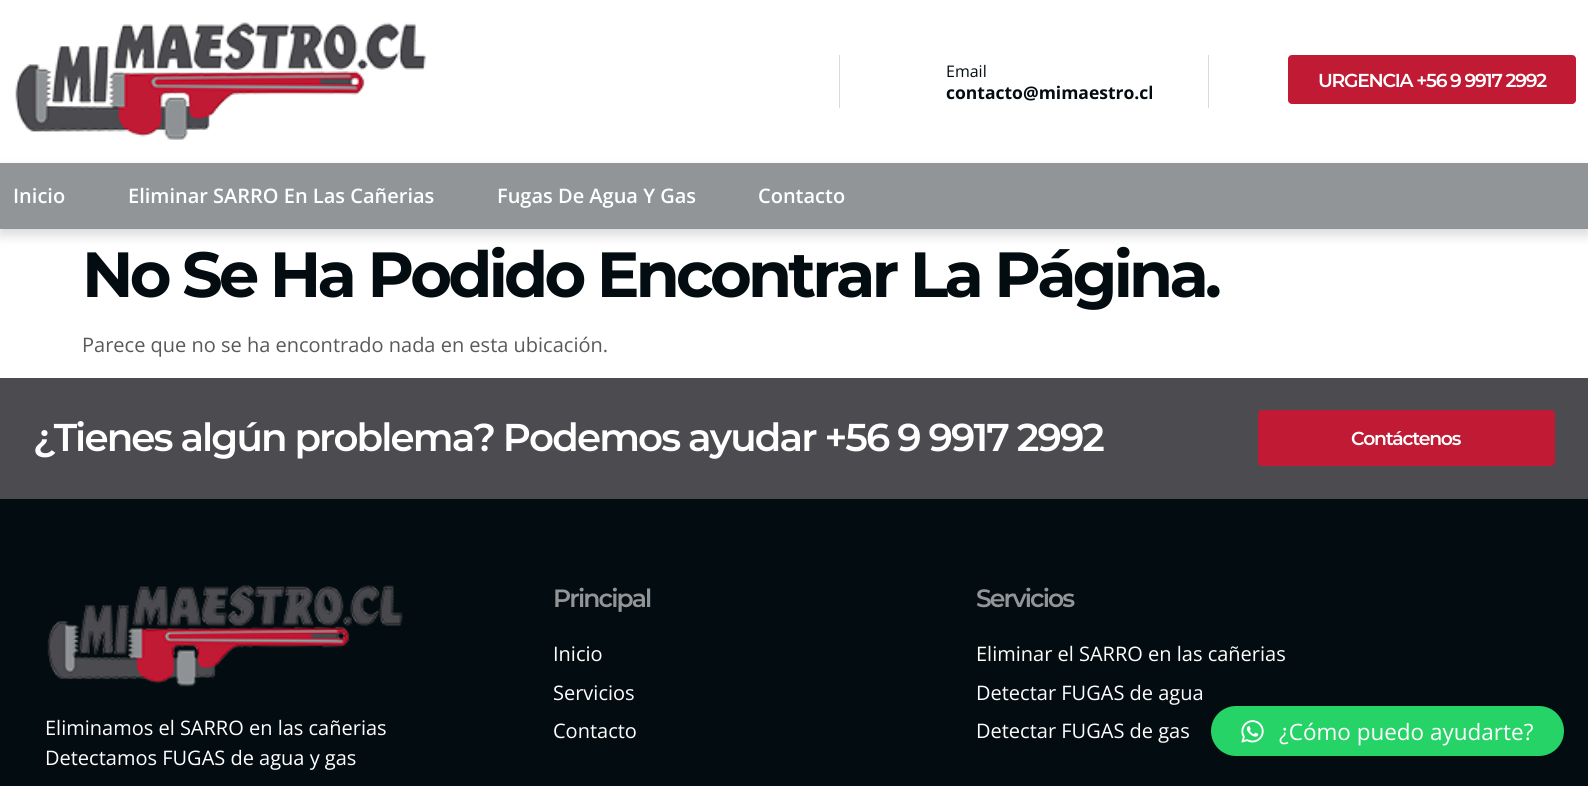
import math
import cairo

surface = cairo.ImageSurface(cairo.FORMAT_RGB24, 1588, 786)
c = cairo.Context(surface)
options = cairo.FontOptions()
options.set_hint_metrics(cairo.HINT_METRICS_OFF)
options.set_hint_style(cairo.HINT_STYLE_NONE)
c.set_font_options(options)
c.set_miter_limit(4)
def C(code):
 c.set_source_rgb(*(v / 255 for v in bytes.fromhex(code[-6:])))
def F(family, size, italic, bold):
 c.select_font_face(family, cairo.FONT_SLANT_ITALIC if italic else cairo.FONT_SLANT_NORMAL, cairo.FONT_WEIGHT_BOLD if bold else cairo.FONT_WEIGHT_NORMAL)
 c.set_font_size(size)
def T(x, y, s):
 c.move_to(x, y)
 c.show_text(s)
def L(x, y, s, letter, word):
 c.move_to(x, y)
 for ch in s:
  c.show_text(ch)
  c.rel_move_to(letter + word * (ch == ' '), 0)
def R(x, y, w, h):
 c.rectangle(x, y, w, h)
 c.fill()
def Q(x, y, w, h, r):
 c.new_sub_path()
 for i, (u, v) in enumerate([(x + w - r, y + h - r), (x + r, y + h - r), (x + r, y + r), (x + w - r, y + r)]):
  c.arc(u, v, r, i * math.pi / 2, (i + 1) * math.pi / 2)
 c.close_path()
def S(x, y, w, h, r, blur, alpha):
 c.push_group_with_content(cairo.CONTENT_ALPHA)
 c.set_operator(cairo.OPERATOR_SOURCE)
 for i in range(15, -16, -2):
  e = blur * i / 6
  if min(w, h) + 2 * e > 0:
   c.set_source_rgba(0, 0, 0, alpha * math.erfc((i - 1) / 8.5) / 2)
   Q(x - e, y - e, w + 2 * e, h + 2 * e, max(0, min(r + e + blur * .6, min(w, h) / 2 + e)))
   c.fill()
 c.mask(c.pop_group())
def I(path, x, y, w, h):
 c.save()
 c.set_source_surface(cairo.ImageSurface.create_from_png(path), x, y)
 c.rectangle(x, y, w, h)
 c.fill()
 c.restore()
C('ffffff')
c.paint()
I('1.png',15,22,411,118)
C('dadada')
R(839,55,1,53)
F('Open Sans',16,0,0)
C('030c10')
T(946,77,'Email')
F('Open Sans',17.5,0,1)
T(946,99,'contacto@mimaestro.cl')
C('dadada')
R(1208,55,1,53)
C('c11a34')
Q(1288,55,288,49,4)
c.fill()
F('Montserrat SemiBold',18.75,0,0)
C('ffffff')
L(1318,87,'URGENCIA +56 9 9917 2992',-1.25,0)
C('000000')
S(0,169,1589,66,0,6,.15)
C('919598')
R(0,163,1588,66)
F('Open Sans SemiBold',20,0,0)
C('ffffff')
T(13,203,'Inicio')
T(128,203,'Eliminar SARRO En Las Cañerias')
T(497,203,'Fugas De Agua Y Gas')
T(758,203,'Contacto')
F('Montserrat',63.75,0,1)
C('030c10')
L(82,297,'No Se Ha Podido Encontrar La Página.',-3.75,0)
F('Open Sans',20,0,0)
C('595959')
T(82,352,'Parece que no se ha encontrado nada en esta ubicación.')
C('4c4b50')
R(0,378,1588,121)
F('Montserrat SemiBold',38.75,0,0)
C('ffffff')
L(33,451,'¿Tienes algún problema? Podemos ayudar +56 9 9917 2992',-1.88,0)
C('c11a34')
Q(1258,410,297,56,4)
c.fill()
F('Montserrat SemiBold',18.75,0,0)
C('ffffff')
L(1351,445,'Contáctenos',-1.25,0)
C('030c10')
R(0,499,1588,287)
I('2.png',47,585,356,102)
F('Open Sans',20,0,0)
C('ffffff')
T(45,735,'Eliminamos el SARRO en las cañerias')
T(45,765,'Detectamos FUGAS de agua y gas')
F('Montserrat SemiBold',25,0,0)
C('919598')
L(553,607,'Principal',-1.88,0)
F('Open Sans',20,0,0)
C('ffffff')
T(553,661,'Inicio')
T(553,700,'Servicios')
T(553,738,'Contacto')
F('Montserrat SemiBold',25,0,0)
C('919598')
L(976,607,'Servicios',-1.88,0)
F('Open Sans',20,0,0)
C('ffffff')
T(976,661,'Eliminar el SARRO en las cañerias')
T(976,700,'Detectar FUGAS de agua')
T(976,738,'Detectar FUGAS de gas')
C('25d366')
Q(1211,706,353,50,25)
c.fill()
I('3.png',1241,720,23,23)
F('Open Sans',22.5,0,0)
C('ffffff')
T(1279,740,'¿Cómo puedo ayudarte?')
surface.write_to_png('o.png')
